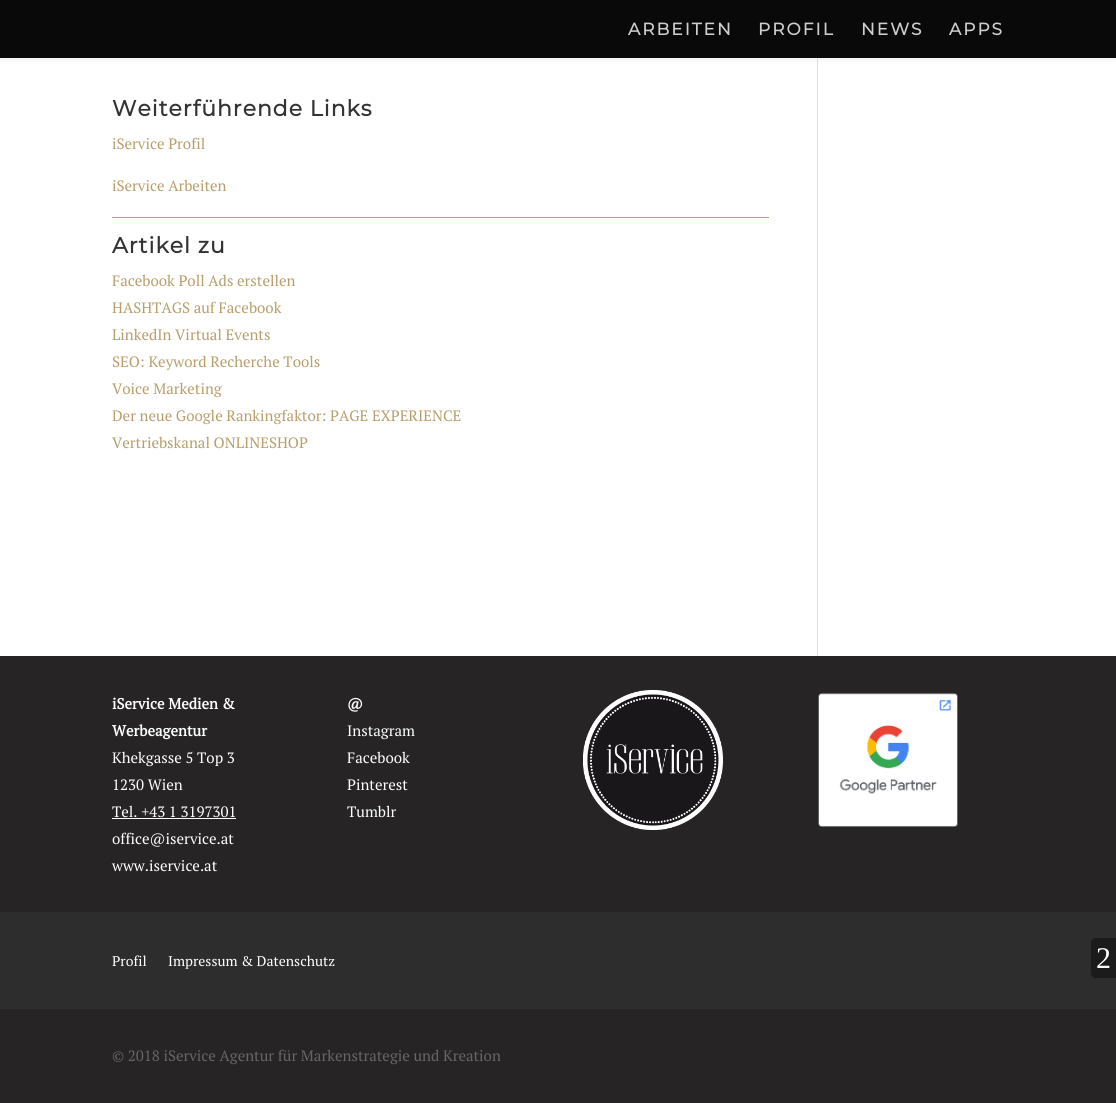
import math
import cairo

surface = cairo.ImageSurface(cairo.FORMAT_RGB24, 1116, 1103)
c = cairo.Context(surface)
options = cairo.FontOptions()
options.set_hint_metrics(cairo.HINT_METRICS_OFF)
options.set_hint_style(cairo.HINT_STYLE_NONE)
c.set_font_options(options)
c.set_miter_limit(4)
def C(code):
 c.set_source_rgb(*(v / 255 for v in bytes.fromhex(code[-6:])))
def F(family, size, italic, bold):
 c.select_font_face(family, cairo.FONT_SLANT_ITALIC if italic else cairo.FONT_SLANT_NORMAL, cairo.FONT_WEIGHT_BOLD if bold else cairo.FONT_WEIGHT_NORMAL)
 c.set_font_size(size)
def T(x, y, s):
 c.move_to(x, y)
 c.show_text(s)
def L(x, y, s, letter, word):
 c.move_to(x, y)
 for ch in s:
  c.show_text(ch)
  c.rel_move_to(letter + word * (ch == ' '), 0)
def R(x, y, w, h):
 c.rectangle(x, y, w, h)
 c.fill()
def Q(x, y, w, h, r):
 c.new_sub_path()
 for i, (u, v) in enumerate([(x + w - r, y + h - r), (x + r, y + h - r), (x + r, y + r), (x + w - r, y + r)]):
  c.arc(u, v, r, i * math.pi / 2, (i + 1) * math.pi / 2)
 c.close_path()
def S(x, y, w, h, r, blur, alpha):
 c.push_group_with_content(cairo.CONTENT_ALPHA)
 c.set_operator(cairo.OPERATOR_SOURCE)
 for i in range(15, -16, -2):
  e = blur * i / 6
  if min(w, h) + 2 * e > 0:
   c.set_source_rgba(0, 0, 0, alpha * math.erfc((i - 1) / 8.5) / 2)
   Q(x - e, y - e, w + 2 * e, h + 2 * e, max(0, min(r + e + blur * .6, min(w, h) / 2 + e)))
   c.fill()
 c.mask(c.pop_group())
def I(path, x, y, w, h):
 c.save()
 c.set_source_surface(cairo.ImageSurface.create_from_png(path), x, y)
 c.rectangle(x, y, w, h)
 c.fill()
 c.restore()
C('ffffff')
c.paint()
C('e2e2e2')
R(817,58,1,598)
C('000000')
S(0,0,1116,58,0,3.5,.1)
C('0a0909')
R(0,0,1116,58)
F('Montserrat',17,0,1)
C('cecece')
L(628,35,'ARBEITEN',2,0)
L(758,35,'PROFIL',2,0)
L(861,35,'NEWS',2,0)
L(949,35,'APPS',2,0)
F('Montserrat',22,0,1)
C('333333')
L(112,116,'Weiterführende Links',1,0)
F('PT Serif',15,0,0)
C('b89e6c')
T(112,149,'iService Profil')
T(112,191,'iService Arbeiten')
R(112,217,657,1)
F('Montserrat',22,0,1)
C('333333')
L(112,253,'Artikel zu',1,0)
F('PT Serif',15,0,0)
C('b89e6c')
T(112,286,'Facebook Poll Ads erstellen')
T(112,313,'HASHTAGS auf Facebook')
T(112,340,'LinkedIn Virtual Events')
T(112,367,'SEO: Keyword Recherche Tools')
T(112,394,'Voice Marketing')
T(112,421,'Der neue Google Rankingfaktor: PAGE EXPERIENCE')
T(112,448,'Vertriebskanal ONLINESHOP')
C('262424')
R(0,656,1116,256)
F('PT Serif',15,0,1)
C('ffffff')
T(112,709,'iService Medien &')
T(112,736,'Werbeagentur')
F('PT Serif',15,0,0)
T(112,763,'Khekgasse 5 Top 3')
T(112,790,'1230 Wien')
T(112,817,'Tel. +43 1 3197301')
R(112,818,124,1)
T(112,844,'office@iservice.at')
T(112,871,'www.iservice.at')
F('PT Serif',15,0,1)
T(347,709,'@')
F('PT Serif',15,0,0)
T(347,736,'Instagram')
T(347,763,'Facebook')
T(347,790,'Pinterest')
T(347,817,'Tumblr')
I('1.png',583,690,140,140)
I('2.png',818,693,140,134)
C('2d2d2d')
R(0,912,1116,97)
F('PT Serif',14,0,0)
C('ffffff')
T(112,966,'Profil')
T(168,966,'Impressum & Datenschutz')
C('262424')
R(0,1009,1116,94)
F('PT Serif',15,0,0)
C('666666')
T(112,1061,'© 2018 iService Agentur für Markenstrategie und Kreation')
C('1b1b1b')
c.new_path()
c.move_to(1096,938)
c.line_to(1116,938)
c.line_to(1116,978)
c.line_to(1096,978)
c.curve_to(1093,978,1091,976,1091,973)
c.line_to(1091,943)
c.curve_to(1091,940,1093,938,1096,938)
c.close_path()
c.fill()
F('Liberation Serif',30,0,0)
C('ffffff')
T(1096,968,'2')
surface.write_to_png('o.png')
